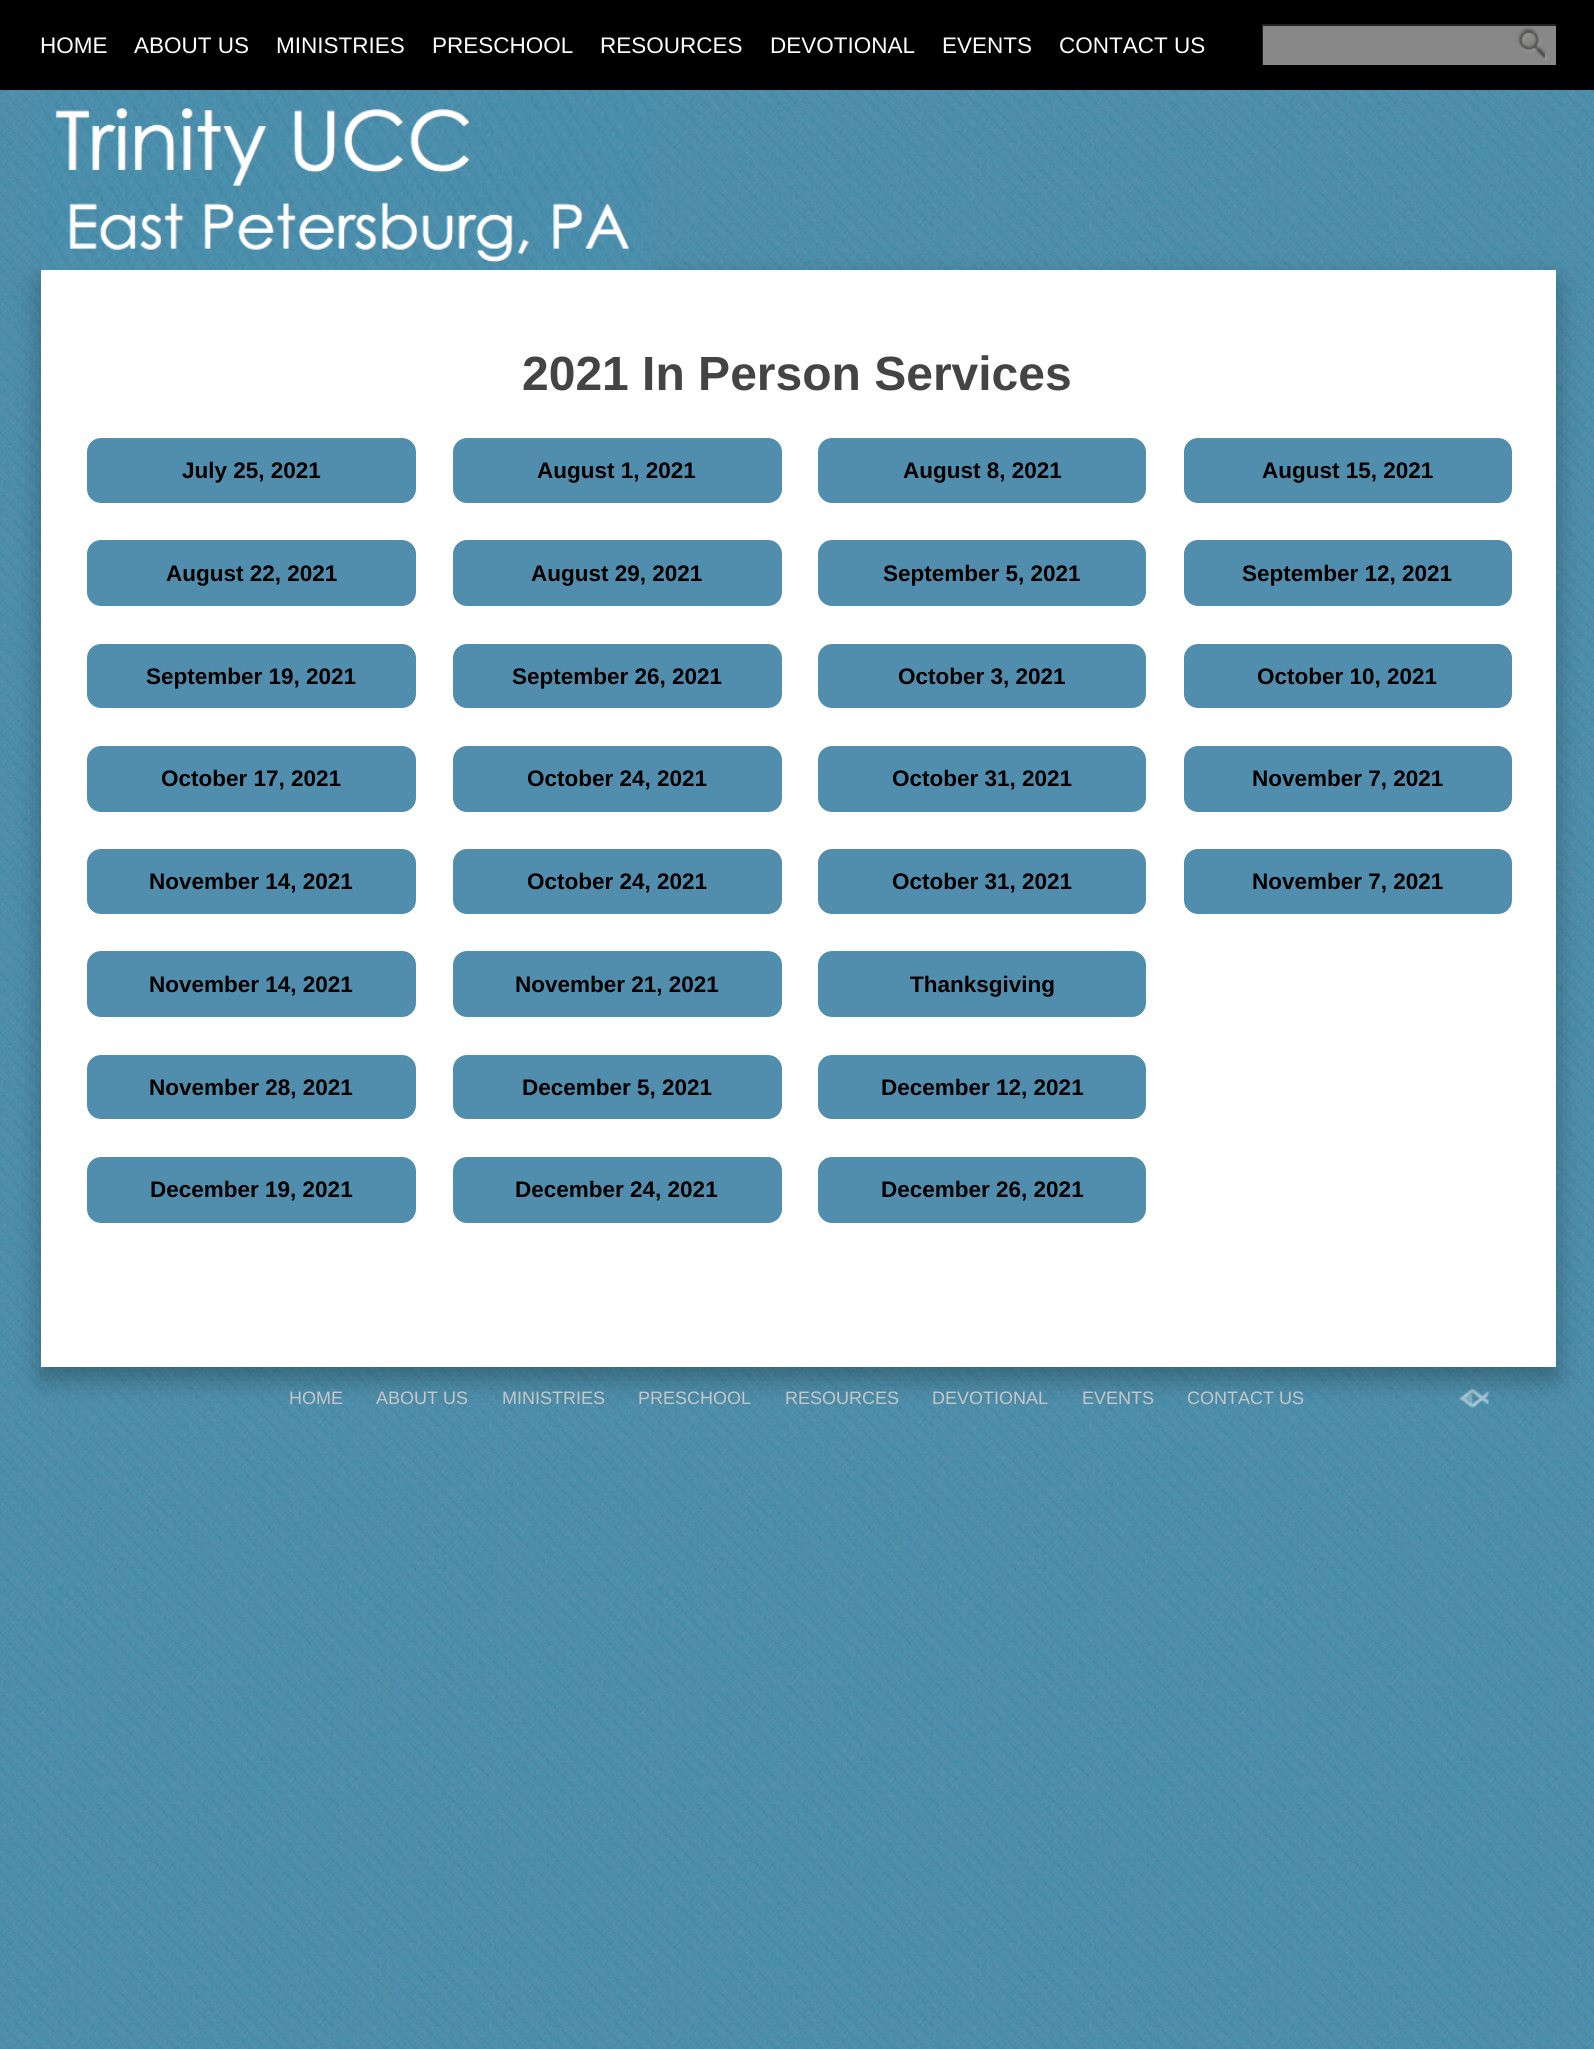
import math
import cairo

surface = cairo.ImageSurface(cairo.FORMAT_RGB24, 1594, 2049)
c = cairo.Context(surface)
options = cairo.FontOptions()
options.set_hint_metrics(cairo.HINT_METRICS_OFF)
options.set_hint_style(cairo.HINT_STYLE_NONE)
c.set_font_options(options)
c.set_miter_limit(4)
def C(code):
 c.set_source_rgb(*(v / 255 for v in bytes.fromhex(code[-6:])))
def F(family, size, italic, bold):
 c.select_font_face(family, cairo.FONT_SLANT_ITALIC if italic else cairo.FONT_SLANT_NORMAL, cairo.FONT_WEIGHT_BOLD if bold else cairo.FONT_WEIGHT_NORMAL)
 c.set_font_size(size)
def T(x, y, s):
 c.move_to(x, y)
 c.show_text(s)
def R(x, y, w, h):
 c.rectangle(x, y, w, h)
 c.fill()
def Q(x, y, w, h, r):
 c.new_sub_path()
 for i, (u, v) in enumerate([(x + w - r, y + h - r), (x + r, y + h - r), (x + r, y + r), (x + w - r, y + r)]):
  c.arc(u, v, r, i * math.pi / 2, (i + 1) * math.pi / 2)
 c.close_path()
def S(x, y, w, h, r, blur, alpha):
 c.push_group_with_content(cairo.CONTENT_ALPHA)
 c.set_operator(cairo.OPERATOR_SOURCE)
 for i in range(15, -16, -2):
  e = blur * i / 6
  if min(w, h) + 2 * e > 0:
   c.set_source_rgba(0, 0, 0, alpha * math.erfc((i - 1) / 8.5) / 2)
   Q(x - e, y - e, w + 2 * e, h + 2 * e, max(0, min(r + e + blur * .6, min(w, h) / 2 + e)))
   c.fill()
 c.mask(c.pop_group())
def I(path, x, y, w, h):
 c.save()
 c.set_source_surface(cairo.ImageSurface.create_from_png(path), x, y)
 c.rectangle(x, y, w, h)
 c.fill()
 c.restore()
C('ffffff')
c.paint()
I('1.png',0,90,1594,1959)
C('000000')
R(0,0,1594,90)
F('Liberation Sans',22.5,0,0)
C('ffffff')
T(40,53,'HOME')
T(134,53,'ABOUT US')
T(276,53,'MINISTRIES')
T(432,53,'PRESCHOOL')
T(600,53,'RESOURCES')
T(770,53,'DEVOTIONAL')
T(942,53,'EVENTS')
T(1059,53,'CONTACT US')
C('888888')
R(1263,26,293,39)
c.save()
c.rectangle(1262,24,294,41)
c.clip()
C('222222')
c.set_fill_rule(cairo.FILL_RULE_EVEN_ODD)
c.new_path()
c.move_to(1113,-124)
c.line_to(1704,-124)
c.line_to(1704,213)
c.line_to(1113,213)
c.close_path()
c.move_to(1263,26)
c.line_to(1557,26)
c.line_to(1557,66)
c.line_to(1263,66)
c.close_path()
c.fill()
c.restore()
I('2.png',1517,27,31,34)
I('4.png',1459,1389,30,19)
C('000000')
S(41,282,1515,1097,0,13.5,.3)
I('3.png',40,90,611,180)
C('ffffff')
R(41,270,1515,1097)
F('Liberation Sans',48,0,1)
C('444444')
T(522,390,'2021 In Person Services')
C('518dad')
Q(87,438,329,65,14)
c.fill()
F('Liberation Sans',22.5,0,1)
C('000000')
T(182,478,'July 25, 2021')
C('518dad')
Q(453,438,329,65,14)
c.fill()
C('000000')
T(537,478,'August 1, 2021')
C('518dad')
Q(818,438,328,65,14)
c.fill()
C('000000')
T(903,478,'August 8, 2021')
C('518dad')
Q(1184,438,328,65,14)
c.fill()
C('000000')
T(1262,478,'August 15, 2021')
C('518dad')
Q(87,540,329,66,14)
c.fill()
C('000000')
T(166,581,'August 22, 2021')
C('518dad')
Q(453,540,329,66,14)
c.fill()
C('000000')
T(531,581,'August 29, 2021')
C('518dad')
Q(818,540,328,66,14)
c.fill()
C('000000')
T(883,581,'September 5, 2021')
C('518dad')
Q(1184,540,328,66,14)
c.fill()
C('000000')
T(1242,581,'September 12, 2021')
C('518dad')
Q(87,644,329,64,14)
c.fill()
C('000000')
T(146,684,'September 19, 2021')
C('518dad')
Q(453,644,329,64,14)
c.fill()
C('000000')
T(512,684,'September 26, 2021')
C('518dad')
Q(818,644,328,64,14)
c.fill()
C('000000')
T(898,684,'October 3, 2021')
C('518dad')
Q(1184,644,328,64,14)
c.fill()
C('000000')
T(1257,684,'October 10, 2021')
C('518dad')
Q(87,746,329,66,14)
c.fill()
C('000000')
T(161,786,'October 17, 2021')
C('518dad')
Q(453,746,329,66,14)
c.fill()
C('000000')
T(527,786,'October 24, 2021')
C('518dad')
Q(818,746,328,66,14)
c.fill()
C('000000')
T(892,786,'October 31, 2021')
C('518dad')
Q(1184,746,328,66,14)
c.fill()
C('000000')
T(1252,786,'November 7, 2021')
C('518dad')
Q(87,849,329,65,14)
c.fill()
C('000000')
T(149,889,'November 14, 2021')
C('518dad')
Q(453,849,329,65,14)
c.fill()
C('000000')
T(527,889,'October 24, 2021')
C('518dad')
Q(818,849,328,65,14)
c.fill()
C('000000')
T(892,889,'October 31, 2021')
C('518dad')
Q(1184,849,328,65,14)
c.fill()
C('000000')
T(1252,889,'November 7, 2021')
C('518dad')
Q(87,951,329,66,14)
c.fill()
C('000000')
T(149,992,'November 14, 2021')
C('518dad')
Q(453,951,329,66,14)
c.fill()
C('000000')
T(515,992,'November 21, 2021')
C('518dad')
Q(818,951,328,66,14)
c.fill()
C('000000')
T(910,992,'Thanksgiving')
C('518dad')
Q(87,1055,329,64,14)
c.fill()
C('000000')
T(149,1095,'November 28, 2021')
C('518dad')
Q(453,1055,329,64,14)
c.fill()
C('000000')
T(522,1095,'December 5, 2021')
C('518dad')
Q(818,1055,328,64,14)
c.fill()
C('000000')
T(881,1095,'December 12, 2021')
C('518dad')
Q(87,1157,329,66,14)
c.fill()
C('000000')
T(150,1197,'December 19, 2021')
C('518dad')
Q(453,1157,329,66,14)
c.fill()
C('000000')
T(515,1197,'December 24, 2021')
C('518dad')
Q(818,1157,328,66,14)
c.fill()
C('000000')
T(881,1197,'December 26, 2021')
F('Liberation Sans',18,0,0)
C('c8c7c7')
T(289,1404,'HOME')
T(376,1404,'ABOUT US')
T(502,1404,'MINISTRIES')
T(638,1404,'PRESCHOOL')
T(785,1404,'RESOURCES')
T(932,1404,'DEVOTIONAL')
T(1082,1404,'EVENTS')
T(1187,1404,'CONTACT US')
surface.write_to_png('o.png')
